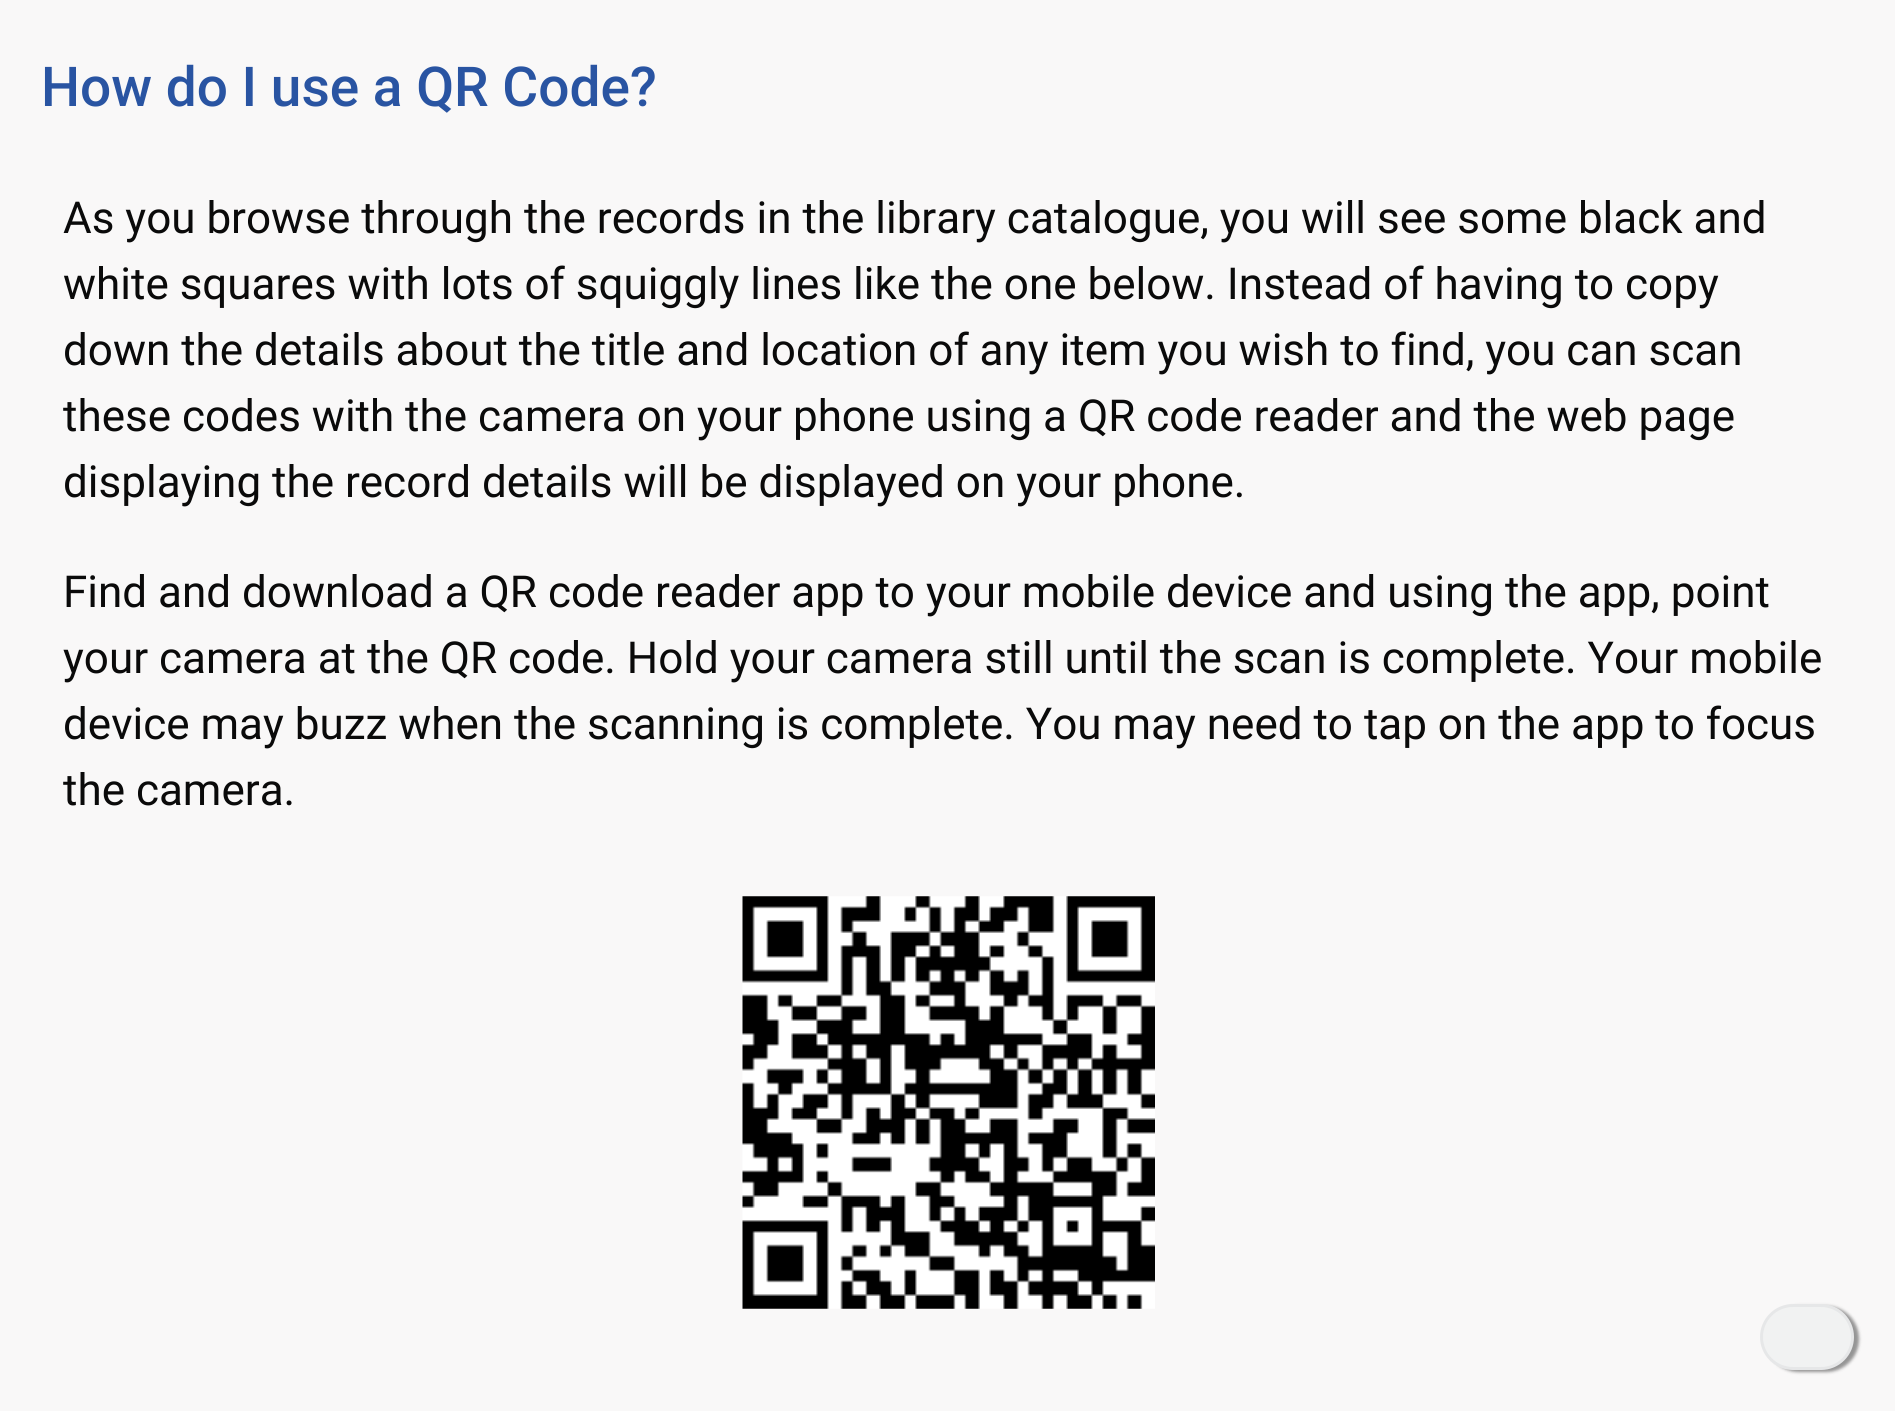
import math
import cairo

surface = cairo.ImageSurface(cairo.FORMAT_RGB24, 1895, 1411)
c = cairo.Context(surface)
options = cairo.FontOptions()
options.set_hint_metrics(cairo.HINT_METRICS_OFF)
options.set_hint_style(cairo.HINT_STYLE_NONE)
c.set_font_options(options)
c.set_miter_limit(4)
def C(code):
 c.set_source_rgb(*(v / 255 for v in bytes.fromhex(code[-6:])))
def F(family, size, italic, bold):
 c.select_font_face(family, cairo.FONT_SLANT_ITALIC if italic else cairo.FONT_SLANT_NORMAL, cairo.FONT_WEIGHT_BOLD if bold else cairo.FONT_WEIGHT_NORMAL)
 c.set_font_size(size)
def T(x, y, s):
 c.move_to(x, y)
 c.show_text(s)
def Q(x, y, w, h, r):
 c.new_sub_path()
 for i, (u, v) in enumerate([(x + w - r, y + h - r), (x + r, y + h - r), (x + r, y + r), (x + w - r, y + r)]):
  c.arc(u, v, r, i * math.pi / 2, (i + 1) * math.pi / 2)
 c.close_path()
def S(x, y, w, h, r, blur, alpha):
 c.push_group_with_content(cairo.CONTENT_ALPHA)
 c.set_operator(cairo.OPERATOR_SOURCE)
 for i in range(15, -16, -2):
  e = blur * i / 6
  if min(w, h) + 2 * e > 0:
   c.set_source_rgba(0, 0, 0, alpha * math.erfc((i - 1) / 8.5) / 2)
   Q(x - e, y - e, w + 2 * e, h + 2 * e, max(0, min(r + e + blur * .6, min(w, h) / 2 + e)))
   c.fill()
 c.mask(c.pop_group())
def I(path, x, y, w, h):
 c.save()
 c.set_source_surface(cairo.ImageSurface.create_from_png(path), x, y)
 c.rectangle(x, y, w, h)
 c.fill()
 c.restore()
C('f9f8f8')
c.paint()
F('Roboto Medium',55,0,0)
C('2954a2')
T(41,106,'How do I use a QR Code?')
F('Roboto',44,0,0)
C('0a0a0a')
T(63,233,'As you browse through the records in the library catalogue, you will see some black and')
T(63,299,'white squares with lots of squiggly lines like the one below. Instead of having to copy')
T(63,365,'down the details about the title and location of any item you wish to find, you can scan')
T(63,431,'these codes with the camera on your phone using a QR code reader and the web page')
T(63,497,'displaying the record details will be displayed on your phone.')
T(63,607,'Find and download a QR code reader app to your mobile device and using the app, point')
T(63,673,'your camera at the QR code. Hold your camera still until the scan is complete. Your mobile')
T(63,739,'device may buzz when the scanning is complete. You may need to tap on the app to focus')
T(63,805,'the camera.')
I('1.png',742,896,413,413)
C('000000')
S(1766,1306,93,66,33,1.5,.4)
C('f1f2f2')
Q(1761.5,1305.5,91,63,31.5)
c.fill_preserve()
C('e6e7e8')
c.set_line_width(3)
c.stroke()
surface.write_to_png('o.png')
